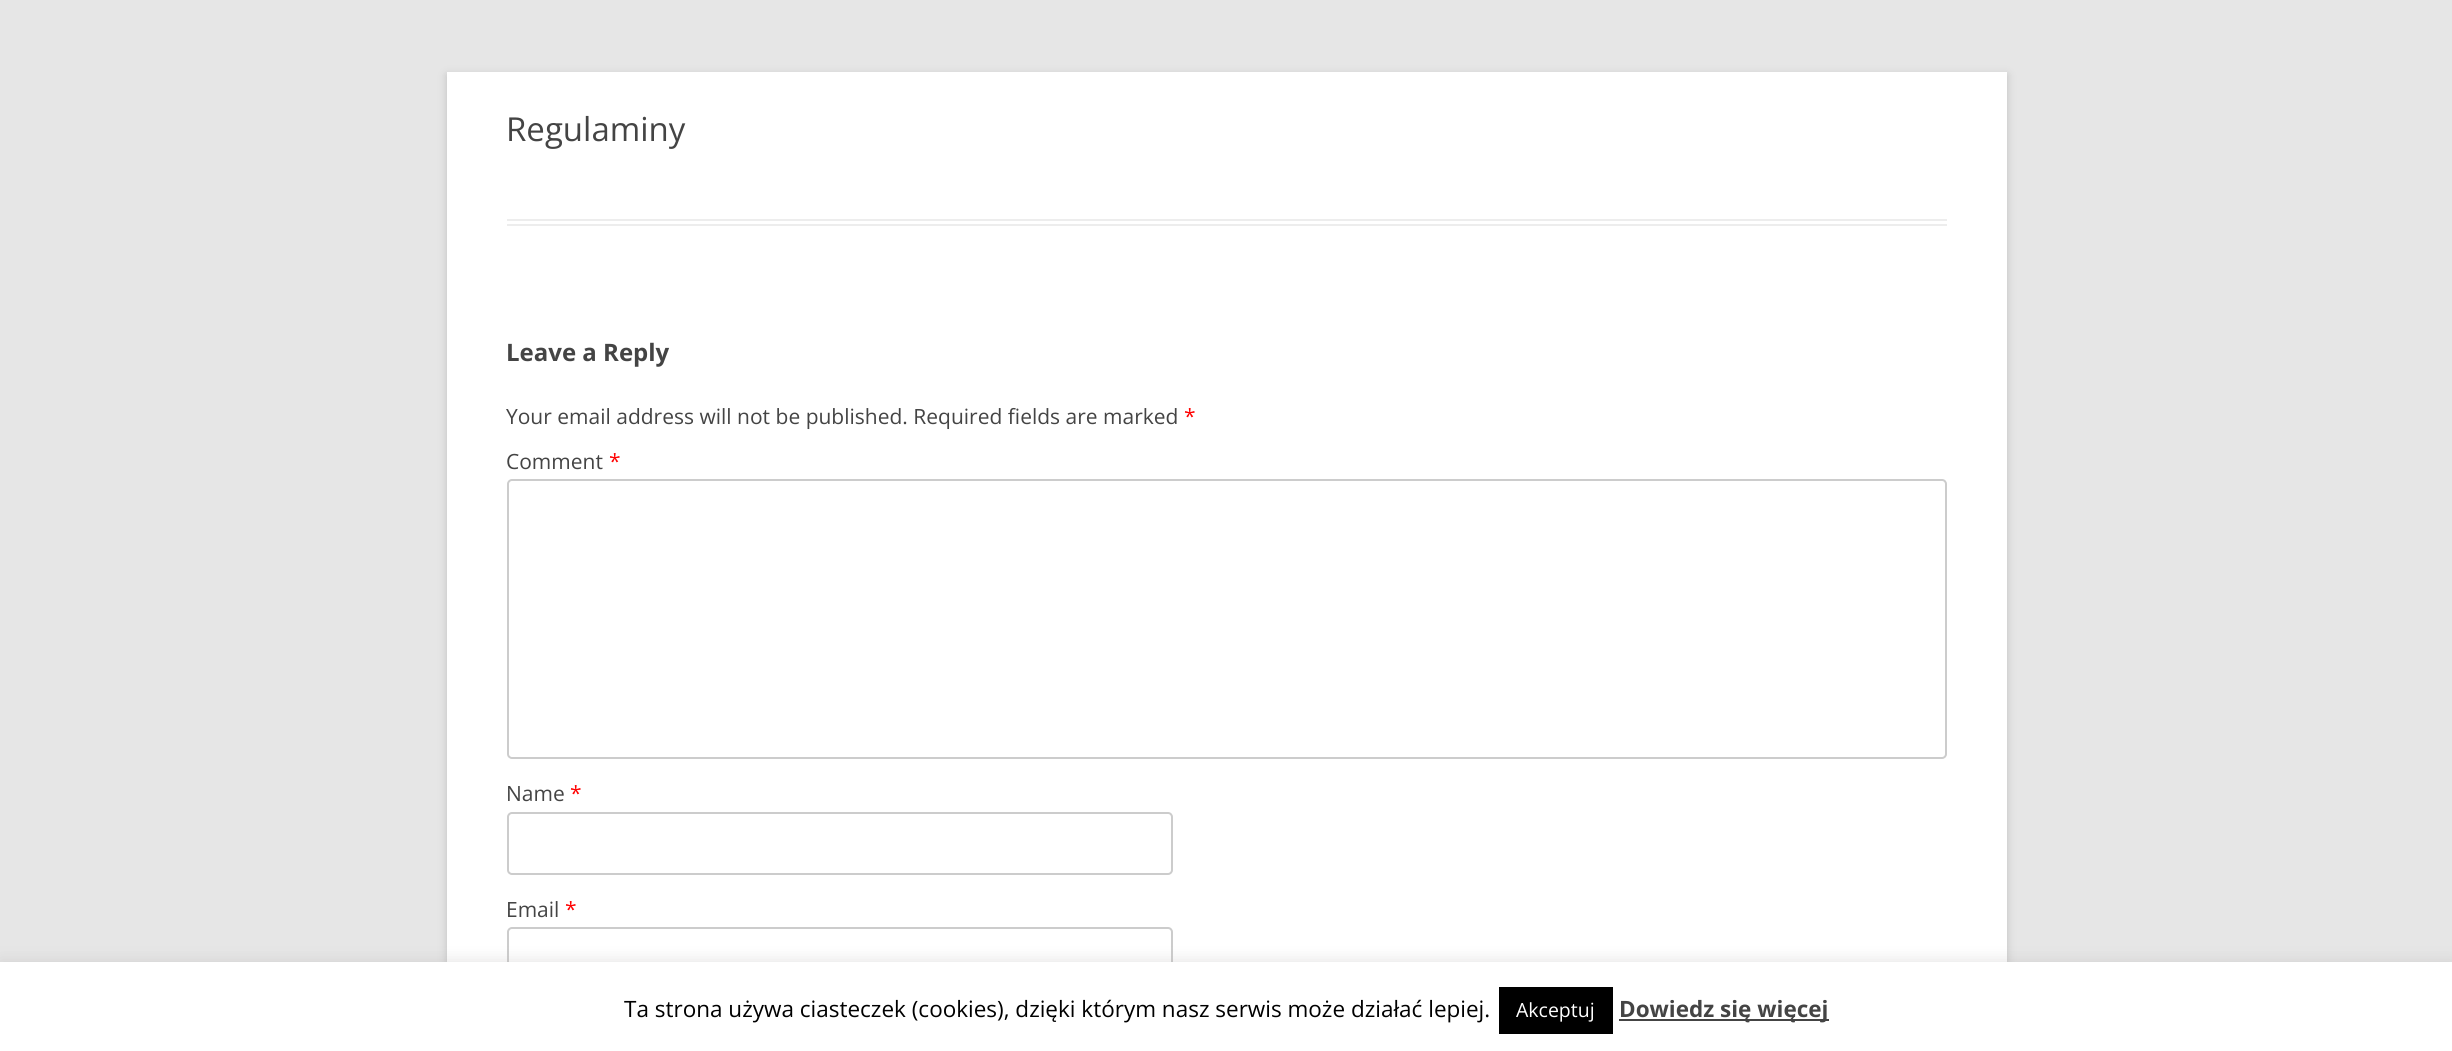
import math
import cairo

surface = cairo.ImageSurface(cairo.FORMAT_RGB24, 2452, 1051)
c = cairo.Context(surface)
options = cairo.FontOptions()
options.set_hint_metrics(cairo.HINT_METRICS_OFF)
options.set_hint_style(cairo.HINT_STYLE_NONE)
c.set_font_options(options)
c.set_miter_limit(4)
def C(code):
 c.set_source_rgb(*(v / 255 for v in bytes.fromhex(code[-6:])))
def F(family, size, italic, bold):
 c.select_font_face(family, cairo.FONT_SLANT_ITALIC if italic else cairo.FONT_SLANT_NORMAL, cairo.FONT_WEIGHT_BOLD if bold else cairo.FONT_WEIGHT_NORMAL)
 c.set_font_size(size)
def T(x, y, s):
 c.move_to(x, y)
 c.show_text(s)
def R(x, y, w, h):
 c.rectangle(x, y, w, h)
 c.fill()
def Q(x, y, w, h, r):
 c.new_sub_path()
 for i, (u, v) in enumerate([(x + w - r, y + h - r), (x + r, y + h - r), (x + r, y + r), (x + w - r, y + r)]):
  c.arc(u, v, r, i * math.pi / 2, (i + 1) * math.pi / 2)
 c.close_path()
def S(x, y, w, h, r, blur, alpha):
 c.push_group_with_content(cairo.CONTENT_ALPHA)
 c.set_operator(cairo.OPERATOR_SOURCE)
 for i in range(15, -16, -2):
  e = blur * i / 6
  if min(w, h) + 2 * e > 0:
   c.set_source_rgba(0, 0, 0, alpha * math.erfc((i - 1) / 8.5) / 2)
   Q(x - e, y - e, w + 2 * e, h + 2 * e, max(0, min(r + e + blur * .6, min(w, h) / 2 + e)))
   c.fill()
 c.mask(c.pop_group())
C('e6e6e6')
c.paint()
C('646464')
S(447,75,1560,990,0,4.5,.3)
C('ffffff')
R(447,72,1560,890)
C('ededed')
R(507,219,1440,2)
R(507,224,1440,2)
F('Open Sans',33,0,0)
C('444444')
T(506,141,'Regulaminy')
F('Open Sans',24,0,1)
T(506,361,'Leave a Reply')
F('Open Sans',21,0,0)
T(506,424,'Your email address will not be published. Required fields are marked')
C('ff0000')
T(1184,424,'*')
C('444444')
T(506,469,'Comment')
C('ff0000')
T(609,469,'*')
Q(508,480,1438,278,4)
C('cccccc')
c.stroke()
C('444444')
T(506,801,'Name')
C('ff0000')
T(570,801,'*')
Q(508,813,664,61,4)
C('cccccc')
c.stroke()
C('444444')
T(506,917,'Email')
C('ff0000')
T(565,917,'*')
Q(508,928,664,63,4)
C('cccccc')
c.stroke()
C('acabab')
S(0,960,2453,90,0,7.5,.3)
C('ffffff')
R(0,962,2452,89)
F('Open Sans',22.5,0,0)
C('000000')
T(624,1017,'Ta strona używa ciasteczek (cookies), dzięki którym nasz serwis może działać lepiej.')
R(1499,987,114,47)
F('Open Sans',19.5,0,0)
C('ffffff')
T(1516,1017,'Akceptuj')
C('444444')
R(1619,1019,210,2)
F('Open Sans',22.5,0,1)
T(1619,1017,'Dowiedz się więcej')
surface.write_to_png('o.png')
